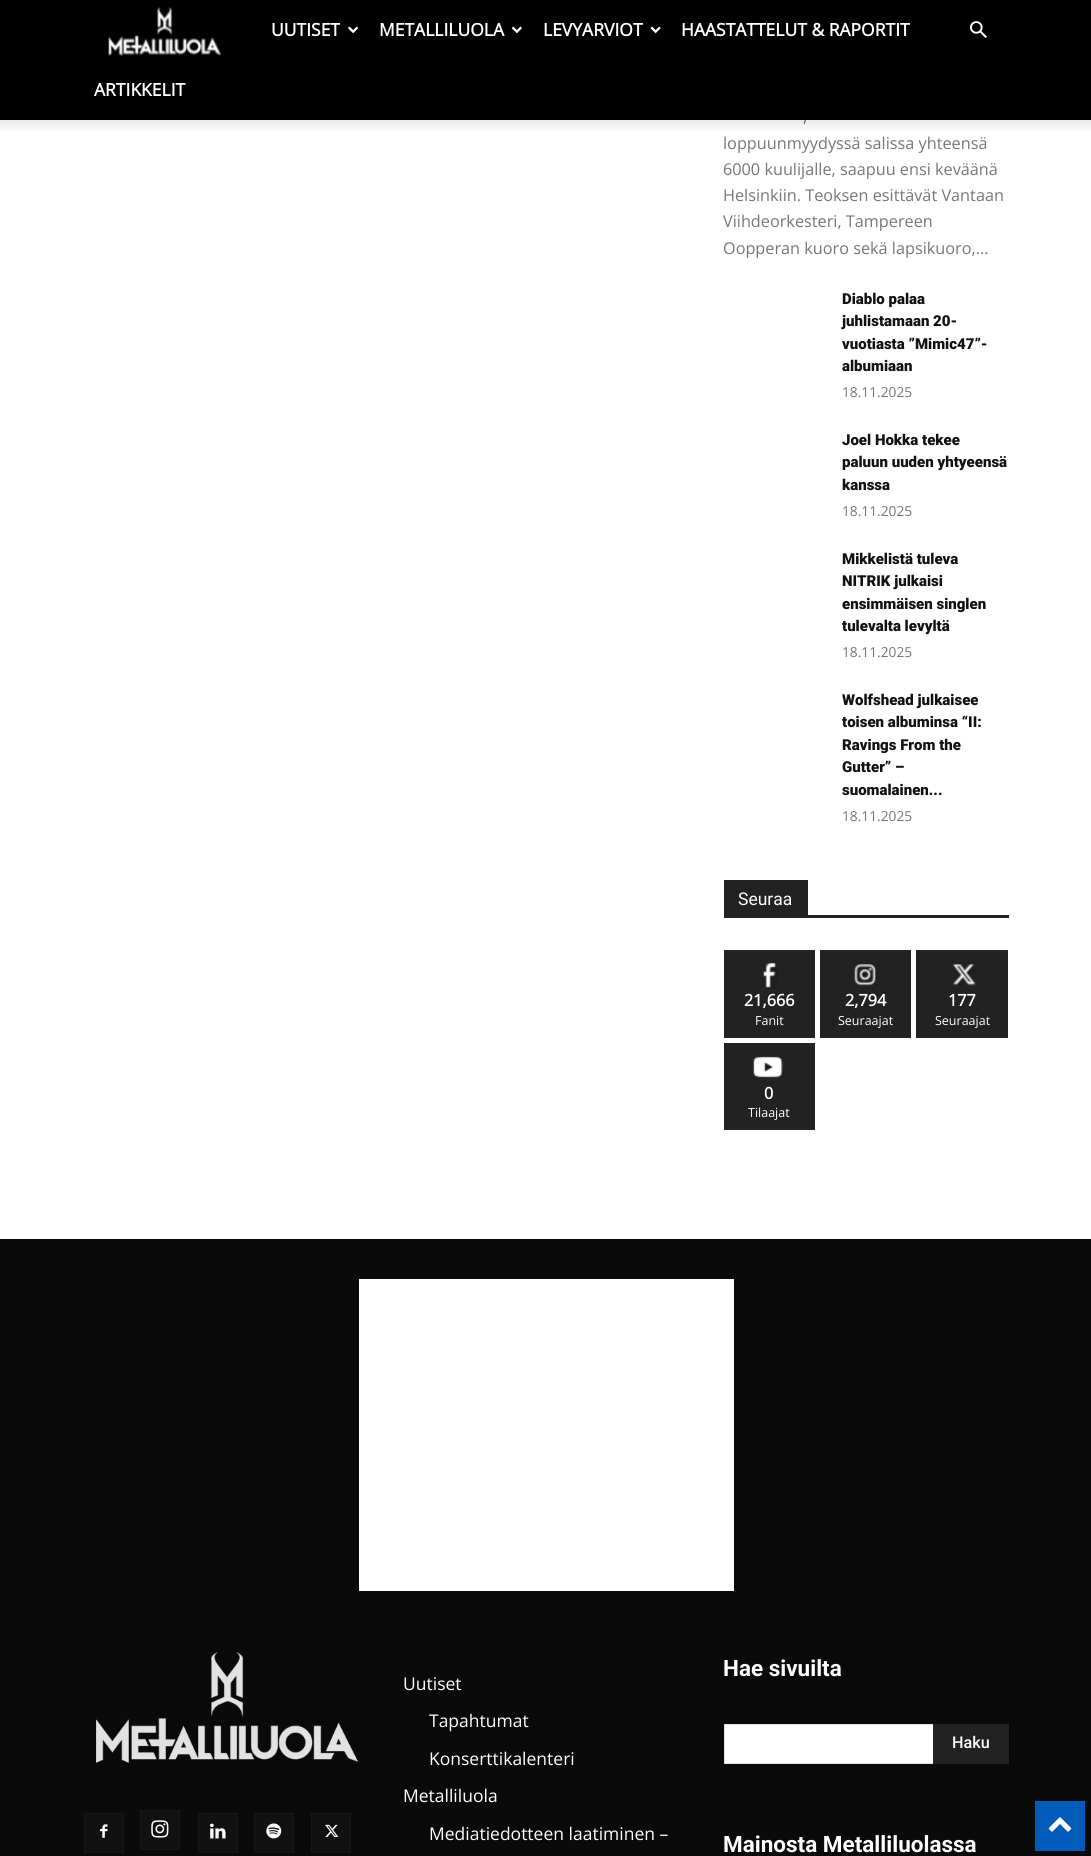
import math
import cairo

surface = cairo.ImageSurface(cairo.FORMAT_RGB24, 1091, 1856)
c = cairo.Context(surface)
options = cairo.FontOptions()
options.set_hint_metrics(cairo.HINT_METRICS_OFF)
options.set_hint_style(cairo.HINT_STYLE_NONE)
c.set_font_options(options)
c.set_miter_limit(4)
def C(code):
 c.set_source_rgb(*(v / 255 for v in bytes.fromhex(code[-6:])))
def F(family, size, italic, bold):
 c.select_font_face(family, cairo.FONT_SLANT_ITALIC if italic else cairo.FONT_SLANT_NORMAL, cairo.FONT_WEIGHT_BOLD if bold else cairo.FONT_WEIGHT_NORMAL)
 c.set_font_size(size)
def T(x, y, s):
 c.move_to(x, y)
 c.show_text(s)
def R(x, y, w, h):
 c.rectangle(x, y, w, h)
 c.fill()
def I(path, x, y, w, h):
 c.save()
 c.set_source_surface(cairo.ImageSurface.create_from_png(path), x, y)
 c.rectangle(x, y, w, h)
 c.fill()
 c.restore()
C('ffffff')
c.paint()
C('000000')
R(0,0,1091,120)
I('1.png',108,7,114,49)
F('Open Sans',17.5,0,1)
C('ffffff')
T(271,36,'UUTISET')
I('2.png',348,26,11,8)
T(379,36,'METALLILUOLA')
I('3.png',511,26,11,8)
T(543,36,'LEVYARVIOT')
I('4.png',650,26,11,8)
T(681,36,'HAASTATTELUT & RAPORTIT')
T(94,96,'ARTIKKELIT')
I('5.png',970,21,17,17)
F('Open Sans',16.25,0,0)
C('767676')
T(803,122,',')
I('6.png',0,120,1091,11)
T(723,149,'loppuunmyydyssä salissa yhteensä')
T(723,175,'6000 kuulijalle, saapuu ensi keväänä')
T(723,201,'Helsinkiin. Teoksen esittävät Vantaan')
T(723,227,'Viihdeorkesteri, Tampereen')
T(723,254,'Oopperan kuoro sekä lapsikuoro,...')
F('Roboto Black',15,0,0)
C('111111')
T(842,304,'Diablo palaa')
T(842,326,'juhlistamaan 20-')
T(842,349,'vuotiasta ”Mimic47”-')
T(842,371,'albumiaan')
F('Open Sans',13.75,0,0)
C('767676')
T(842,397,'18.11.2025')
F('Roboto Black',15,0,0)
C('111111')
T(842,445,'Joel Hokka tekee')
T(842,467,'paluun uuden yhtyeensä')
T(842,490,'kanssa')
F('Open Sans',13.75,0,0)
C('767676')
T(842,516,'18.11.2025')
F('Roboto Black',15,0,0)
C('111111')
T(842,564,'Mikkelistä tuleva')
T(842,586,'NITRIK julkaisi')
T(842,609,'ensimmäisen singlen')
T(842,631,'tulevalta levyltä')
F('Open Sans',13.75,0,0)
C('767676')
T(842,657,'18.11.2025')
F('Roboto Black',15,0,0)
C('111111')
T(842,705,'Wolfshead julkaisee')
T(842,727,'toisen albuminsa “II:')
T(842,750,'Ravings From the')
T(842,772,'Gutter” –')
T(842,795,'suomalainen...')
F('Open Sans',13.75,0,0)
C('767676')
T(842,821,'18.11.2025')
C('222222')
R(724,915,285,3)
R(724,880,84,35)
F('Roboto',17.5,0,0)
C('ffffff')
T(738,905,'Seuraa')
C('222222')
R(724,950,91,88)
I('7.png',763,962,16,27)
F('Open Sans',16.25,0,1)
C('ffffff')
T(744,1006,'21,666')
F('Open Sans',12.5,0,0)
T(755,1025,'Fanit')
C('222222')
R(820,950,91,88)
I('8.png',854,964,22,22)
F('Open Sans',16.25,0,1)
C('ffffff')
T(845,1006,'2,794')
F('Open Sans',12.5,0,0)
T(838,1025,'Seuraajat')
C('222222')
R(916,950,92,88)
I('9.png',952,964,24,22)
F('Open Sans',16.25,0,1)
C('ffffff')
T(948,1006,'177')
F('Open Sans',12.5,0,0)
T(935,1025,'Seuraajat')
C('222222')
R(724,1043,91,87)
I('10.png',753,1056,30,23)
F('Open Sans',16.25,0,1)
C('ffffff')
T(764,1099,'0')
F('Open Sans',12.5,0,0)
T(748,1117,'Tilaajat')
C('0a0a0a')
R(0,1239,1091,617)
C('ffffff')
R(359,1279,375,312)
I('11.png',96,1652,262,111)
C('111111')
R(85,1814,38,38)
I('12.png',100,1824,8,14)
c.rectangle(84.5,1813.5,39,39)
C('181818')
c.set_line_width(1)
c.stroke()
C('111111')
R(141,1811,38,38)
I('13.png',151,1820,18,18)
c.rectangle(140.5,1810.5,39,39)
C('181818')
c.stroke()
C('111111')
R(199,1814,38,38)
I('14.png',210,1823,16,16)
c.rectangle(198.5,1813.5,39,39)
C('181818')
c.stroke()
C('111111')
R(255,1814,38,38)
I('15.png',266,1823,16,16)
c.rectangle(254.5,1813.5,39,39)
C('181818')
c.stroke()
C('111111')
R(312,1814,38,38)
I('16.png',325,1824,14,13)
c.rectangle(311.5,1813.5,39,39)
C('181818')
c.stroke()
F('Open Sans',17.5,0,0)
C('ffffff')
T(403,1690,'Uutiset')
T(429,1727,'Tapahtumat')
T(429,1765,'Konserttikalenteri')
T(403,1802,'Metalliluola')
T(429,1840,'Mediatiedotteen laatiminen –')
F('Roboto',22.5,0,1)
T(723,1676,'Hae sivuilta')
R(725,1725,208,38)
C('e1e1e1')
R(724,1724,209,1)
R(724,1763,209,1)
R(724,1724,1,40)
C('222222')
R(933,1724,76,40)
F('Roboto Medium',16.25,0,0)
C('ffffff')
T(952,1748,'Haku')
F('Roboto',22.5,0,1)
T(723,1852,'Mainosta Metalliluolassa')
C('005bbb')
R(1035,1801,50,50)
I('17.png',1048,1817,24,15)
surface.write_to_png('o.png')
